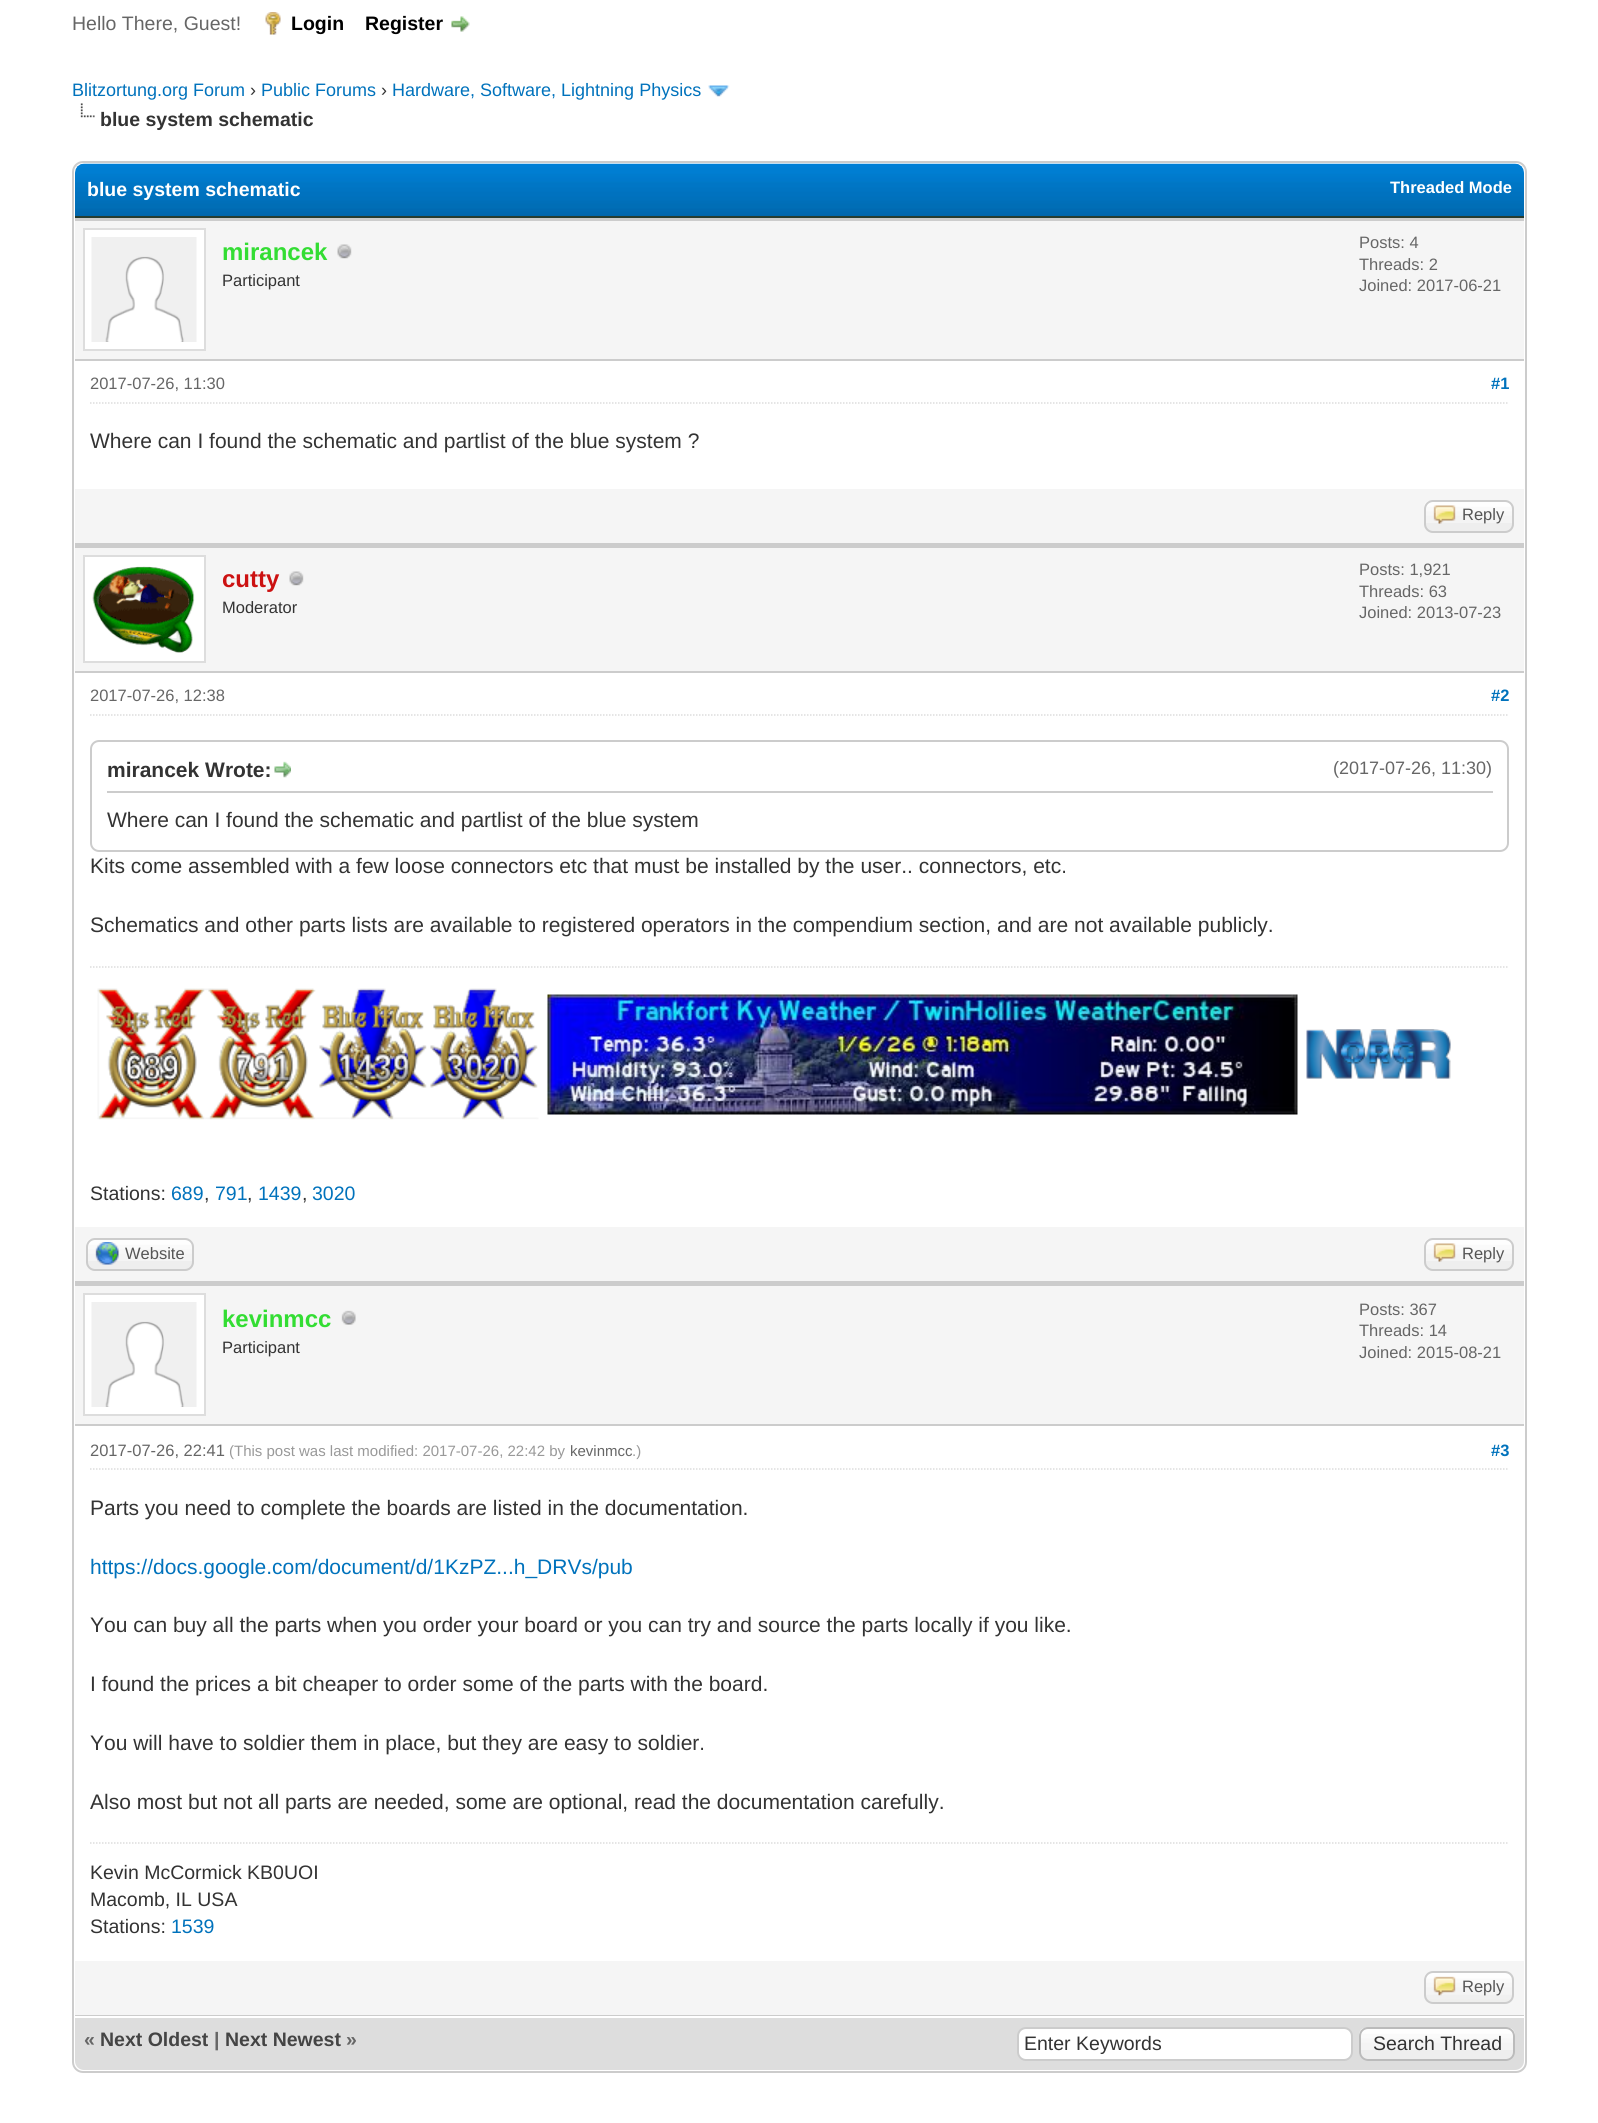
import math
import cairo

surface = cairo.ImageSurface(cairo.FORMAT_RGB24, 1598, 2123)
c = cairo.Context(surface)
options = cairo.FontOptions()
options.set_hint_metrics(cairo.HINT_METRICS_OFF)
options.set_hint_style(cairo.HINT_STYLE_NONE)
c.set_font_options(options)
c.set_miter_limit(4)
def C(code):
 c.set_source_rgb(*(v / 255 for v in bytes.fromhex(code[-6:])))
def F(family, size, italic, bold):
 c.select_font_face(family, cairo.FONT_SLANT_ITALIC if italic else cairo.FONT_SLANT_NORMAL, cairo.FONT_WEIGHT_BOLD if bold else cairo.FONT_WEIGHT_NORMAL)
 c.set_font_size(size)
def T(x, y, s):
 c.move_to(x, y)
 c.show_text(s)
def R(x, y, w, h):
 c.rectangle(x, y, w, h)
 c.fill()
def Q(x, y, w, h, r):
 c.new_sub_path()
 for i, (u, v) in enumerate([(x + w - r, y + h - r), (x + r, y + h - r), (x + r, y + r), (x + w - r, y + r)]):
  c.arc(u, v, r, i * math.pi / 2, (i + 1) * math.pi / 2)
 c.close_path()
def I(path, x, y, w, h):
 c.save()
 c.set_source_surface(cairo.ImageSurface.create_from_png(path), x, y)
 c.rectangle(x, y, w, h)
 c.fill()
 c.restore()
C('ffffff')
c.paint()
F('Liberation Sans',19.5,0,0)
C('666666')
T(72,30,'Hello There, Guest!')
I('1.png',265,12,16,23)
F('Liberation Sans',19.5,0,1)
C('000000')
T(291,30,'Login')
T(365,30,'Register')
I('2.png',451,16,19,16)
F('Liberation Sans',18,0,0)
C('0072bc')
T(72,96,'Blitzortung.org Forum')
C('333333')
T(250,96,'›')
C('0072bc')
T(261,96,'Public Forums')
C('333333')
T(381,96,'›')
C('0072bc')
T(392,96,'Hardware, Software, Lightning Physics')
I('3.png',708,85,22,12)
I('4.png',80,103,15,15)
F('Liberation Sans',19.5,0,1)
C('333333')
T(100,126,'blue system schematic')
Q(73,162,1453,1910,10)
C('cccccc')
c.stroke()
I('5.png',75,163,1449,53)
C('263c30')
R(75,216,1449,2)
C('ffffff')
T(87,196,'blue system schematic')
F('Liberation Sans',16.5,0,1)
T(1390,193,'Threaded Mode')
C('f5f5f5')
R(75,221,1449,138)
C('cccccc')
R(75,218,1449,3)
R(75,359,1449,2)
C('ffffff')
c.rectangle(84,229,121,121)
c.fill_preserve()
C('dddddd')
c.stroke()
I('6.png',91,237,106,105)
F('Liberation Sans',24,0,1)
C('33dd33')
T(222,260,'mirancek')
I('7.png',337,244,15,15)
F('Liberation Sans',16.5,0,0)
C('333333')
T(222,286,'Participant')
C('666666')
T(1359,248,'Posts: 4')
T(1359,270,'Threads: 2')
T(1359,291,'Joined: 2017-06-21')
c.new_path()
c.move_to(90,403)
c.line_to(1509,403)
C('dddddd')
c.set_line_width(1.5)
c.set_dash([1.5,1.5])
c.stroke()
C('666666')
T(90,389,'2017-07-26, 11:30')
F('Liberation Sans',16.5,0,1)
C('0072bc')
T(1491,389,'#1')
F('Liberation Sans',21,0,0)
C('333333')
T(90,448,'Where can I found the schematic and partlist of the blue system ?')
C('f5f5f5')
R(75,489,1449,54)
C('cccccc')
R(75,543,1449,5)
C('eeeeee')
Q(1424,500,90,33,9)
c.fill()
I('8.png',1424,501,89,22)
Q(1425,501,88,31,8)
C('cccccc')
c.set_line_width(2)
c.set_dash([])
c.stroke()
I('9.png',1433,505,23,19)
F('Liberation Sans',16.5,0,0)
C('555555')
T(1462,520,'Reply')
C('f5f5f5')
R(75,548,1449,123)
C('cccccc')
R(75,671,1449,2)
C('ffffff')
c.rectangle(84,556,121,106)
c.fill_preserve()
C('dddddd')
c.stroke()
I('10.png',92,566,103,87)
F('Liberation Sans',24,0,1)
C('cc1111')
T(222,587,'cutty')
I('7.png',289,571,15,15)
F('Liberation Sans',16.5,0,0)
C('333333')
T(222,613,'Moderator')
C('666666')
T(1359,575,'Posts: 1,921')
T(1359,597,'Threads: 63')
T(1359,618,'Joined: 2013-07-23')
c.new_path()
c.move_to(90,715)
c.line_to(1509,715)
C('dddddd')
c.set_line_width(1.5)
c.set_dash([1.5,1.5])
c.stroke()
C('666666')
T(90,701,'2017-07-26, 12:38')
F('Liberation Sans',16.5,0,1)
C('0072bc')
T(1491,701,'#2')
Q(91,741,1417,110,8)
C('cccccc')
c.set_line_width(2)
c.set_dash([])
c.stroke()
R(107,791,1386,2)
F('Liberation Sans',21,0,1)
C('333333')
T(107,777,'mirancek Wrote:')
I('11.png',274,761,17,17)
F('Liberation Sans',18,0,0)
C('666666')
T(1333,774,'(2017-07-26, 11:30)')
F('Liberation Sans',21,0,0)
C('333333')
T(107,827,'Where can I found the schematic and partlist of the blue system')
T(90,873,'Kits come assembled with a few loose connectors etc that must be installed by the user.. connectors, etc.')
T(90,932,'Schematics and other parts lists are available to registered operators in the compendium section, and are not available publicly.')
c.new_path()
c.move_to(90,967)
c.line_to(1509,967)
C('dddddd')
c.set_line_width(1.5)
c.set_dash([1.5,1.5])
c.stroke()
I('12.png',97,988,442,132)
I('13.png',547,994,751,121)
I('14.png',1306,1029,145,50)
F('Liberation Sans',19.5,0,0)
C('333333')
T(90,1200,'Stations:')
C('0072bc')
T(171,1200,'689')
C('333333')
T(204,1200,',')
C('0072bc')
T(215,1200,'791')
C('333333')
T(247,1200,',')
C('0072bc')
T(258,1200,'1439')
C('333333')
T(302,1200,',')
C('0072bc')
T(312,1200,'3020')
C('f5f5f5')
R(75,1227,1449,54)
C('cccccc')
R(75,1281,1449,5)
C('eeeeee')
Q(86,1238,108,33,9)
c.fill()
I('15.png',86,1239,107,22)
Q(87,1239,106,31,8)
C('cccccc')
c.set_line_width(2)
c.set_dash([])
c.stroke()
I('16.png',95,1242,24,23)
F('Liberation Sans',16.5,0,0)
C('555555')
T(125,1259,'Website')
C('eeeeee')
Q(1424,1238,90,33,9)
c.fill()
I('8.png',1424,1239,89,22)
Q(1425,1239,88,31,8)
C('cccccc')
c.stroke()
I('9.png',1433,1243,23,19)
C('555555')
T(1462,1259,'Reply')
C('f5f5f5')
R(75,1286,1449,138)
C('cccccc')
R(75,1424,1449,2)
C('ffffff')
c.rectangle(84,1294,121,121)
c.fill_preserve()
C('dddddd')
c.stroke()
I('6.png',91,1302,106,105)
F('Liberation Sans',24,0,1)
C('33dd33')
T(222,1327,'kevinmcc')
I('17.png',341,1310,15,15)
F('Liberation Sans',16.5,0,0)
C('333333')
T(222,1353,'Participant')
C('666666')
T(1359,1315,'Posts: 367')
T(1359,1336,'Threads: 14')
T(1359,1358,'Joined: 2015-08-21')
c.new_path()
c.move_to(90,1469)
c.line_to(1509,1469)
C('dddddd')
c.set_line_width(1.5)
c.set_dash([1.5,1.5])
c.stroke()
C('666666')
T(90,1456,'2017-07-26, 22:41')
F('Liberation Sans',15,0,0)
C('999999')
T(229,1456,'(This post was last modified: 2017-07-26, 22:42 by')
C('666666')
T(570,1456,'kevinmcc')
C('999999')
T(632,1456,'.)')
F('Liberation Sans',16.5,0,1)
C('0072bc')
T(1491,1456,'#3')
F('Liberation Sans',21,0,0)
C('333333')
T(90,1515,'Parts you need to complete the boards are listed in the documentation.')
C('0072bc')
T(90,1574,'https://docs.google.com/document/d/1KzPZ...h_DRVs/pub')
C('333333')
T(90,1632,'You can buy all the parts when you order your board or you can try and source the parts locally if you like.')
T(90,1691,'I found the prices a bit cheaper to order some of the parts with the board.')
T(90,1750,'You will have to soldier them in place, but they are easy to soldier.')
T(90,1809,'Also most but not all parts are needed, some are optional, read the documentation carefully.')
c.new_path()
c.move_to(90,1843)
c.line_to(1509,1843)
C('dddddd')
c.stroke()
F('Liberation Sans',19.5,0,0)
C('333333')
T(90,1879,'Kevin McCormick KB0UOI')
T(90,1906,'Macomb, IL USA')
T(90,1933,'Stations:')
C('0072bc')
T(171,1933,'1539')
C('f5f5f5')
R(75,1961,1449,54)
C('cccccc')
R(75,2015,1449,1)
I('18.png',1424,1972,89,30)
Q(1425,1972,88,31,8)
c.set_line_width(2)
c.set_dash([])
c.stroke()
I('19.png',1433,1976,23,20)
F('Liberation Sans',16.5,0,0)
C('555555')
T(1462,1992,'Reply')
C('dddddd')
c.new_path()
c.move_to(75,2016)
c.line_to(1524,2016)
c.line_to(1524,2061)
c.curve_to(1524,2066,1520,2070,1515,2070)
c.line_to(84,2070)
c.curve_to(79,2070,75,2066,75,2061)
c.close_path()
c.fill()
C('ffffff')
R(75,2016,1449,2)
F('Liberation Sans',19.5,0,1)
C('666666')
T(84,2046,'«')
C('444444')
T(100,2046,'Next Oldest')
C('666666')
T(214,2046,'|')
C('444444')
T(225,2046,'Next Newest')
C('666666')
T(346,2046,'»')
C('ffffff')
Q(1018,2028,334,32,8)
c.fill_preserve()
C('cccccc')
c.stroke()
F('Liberation Sans',19.5,0,0)
C('333333')
T(1024,2050,'Enter Keywords')
C('eeeeee')
Q(1359,2027,156,34,9)
c.fill()
I('20.png',1359,2028,156,22)
Q(1360,2028,154,32,8)
C('bbbbbb')
c.stroke()
C('333333')
T(1373,2050,'Search Thread')
surface.write_to_png('o.png')
